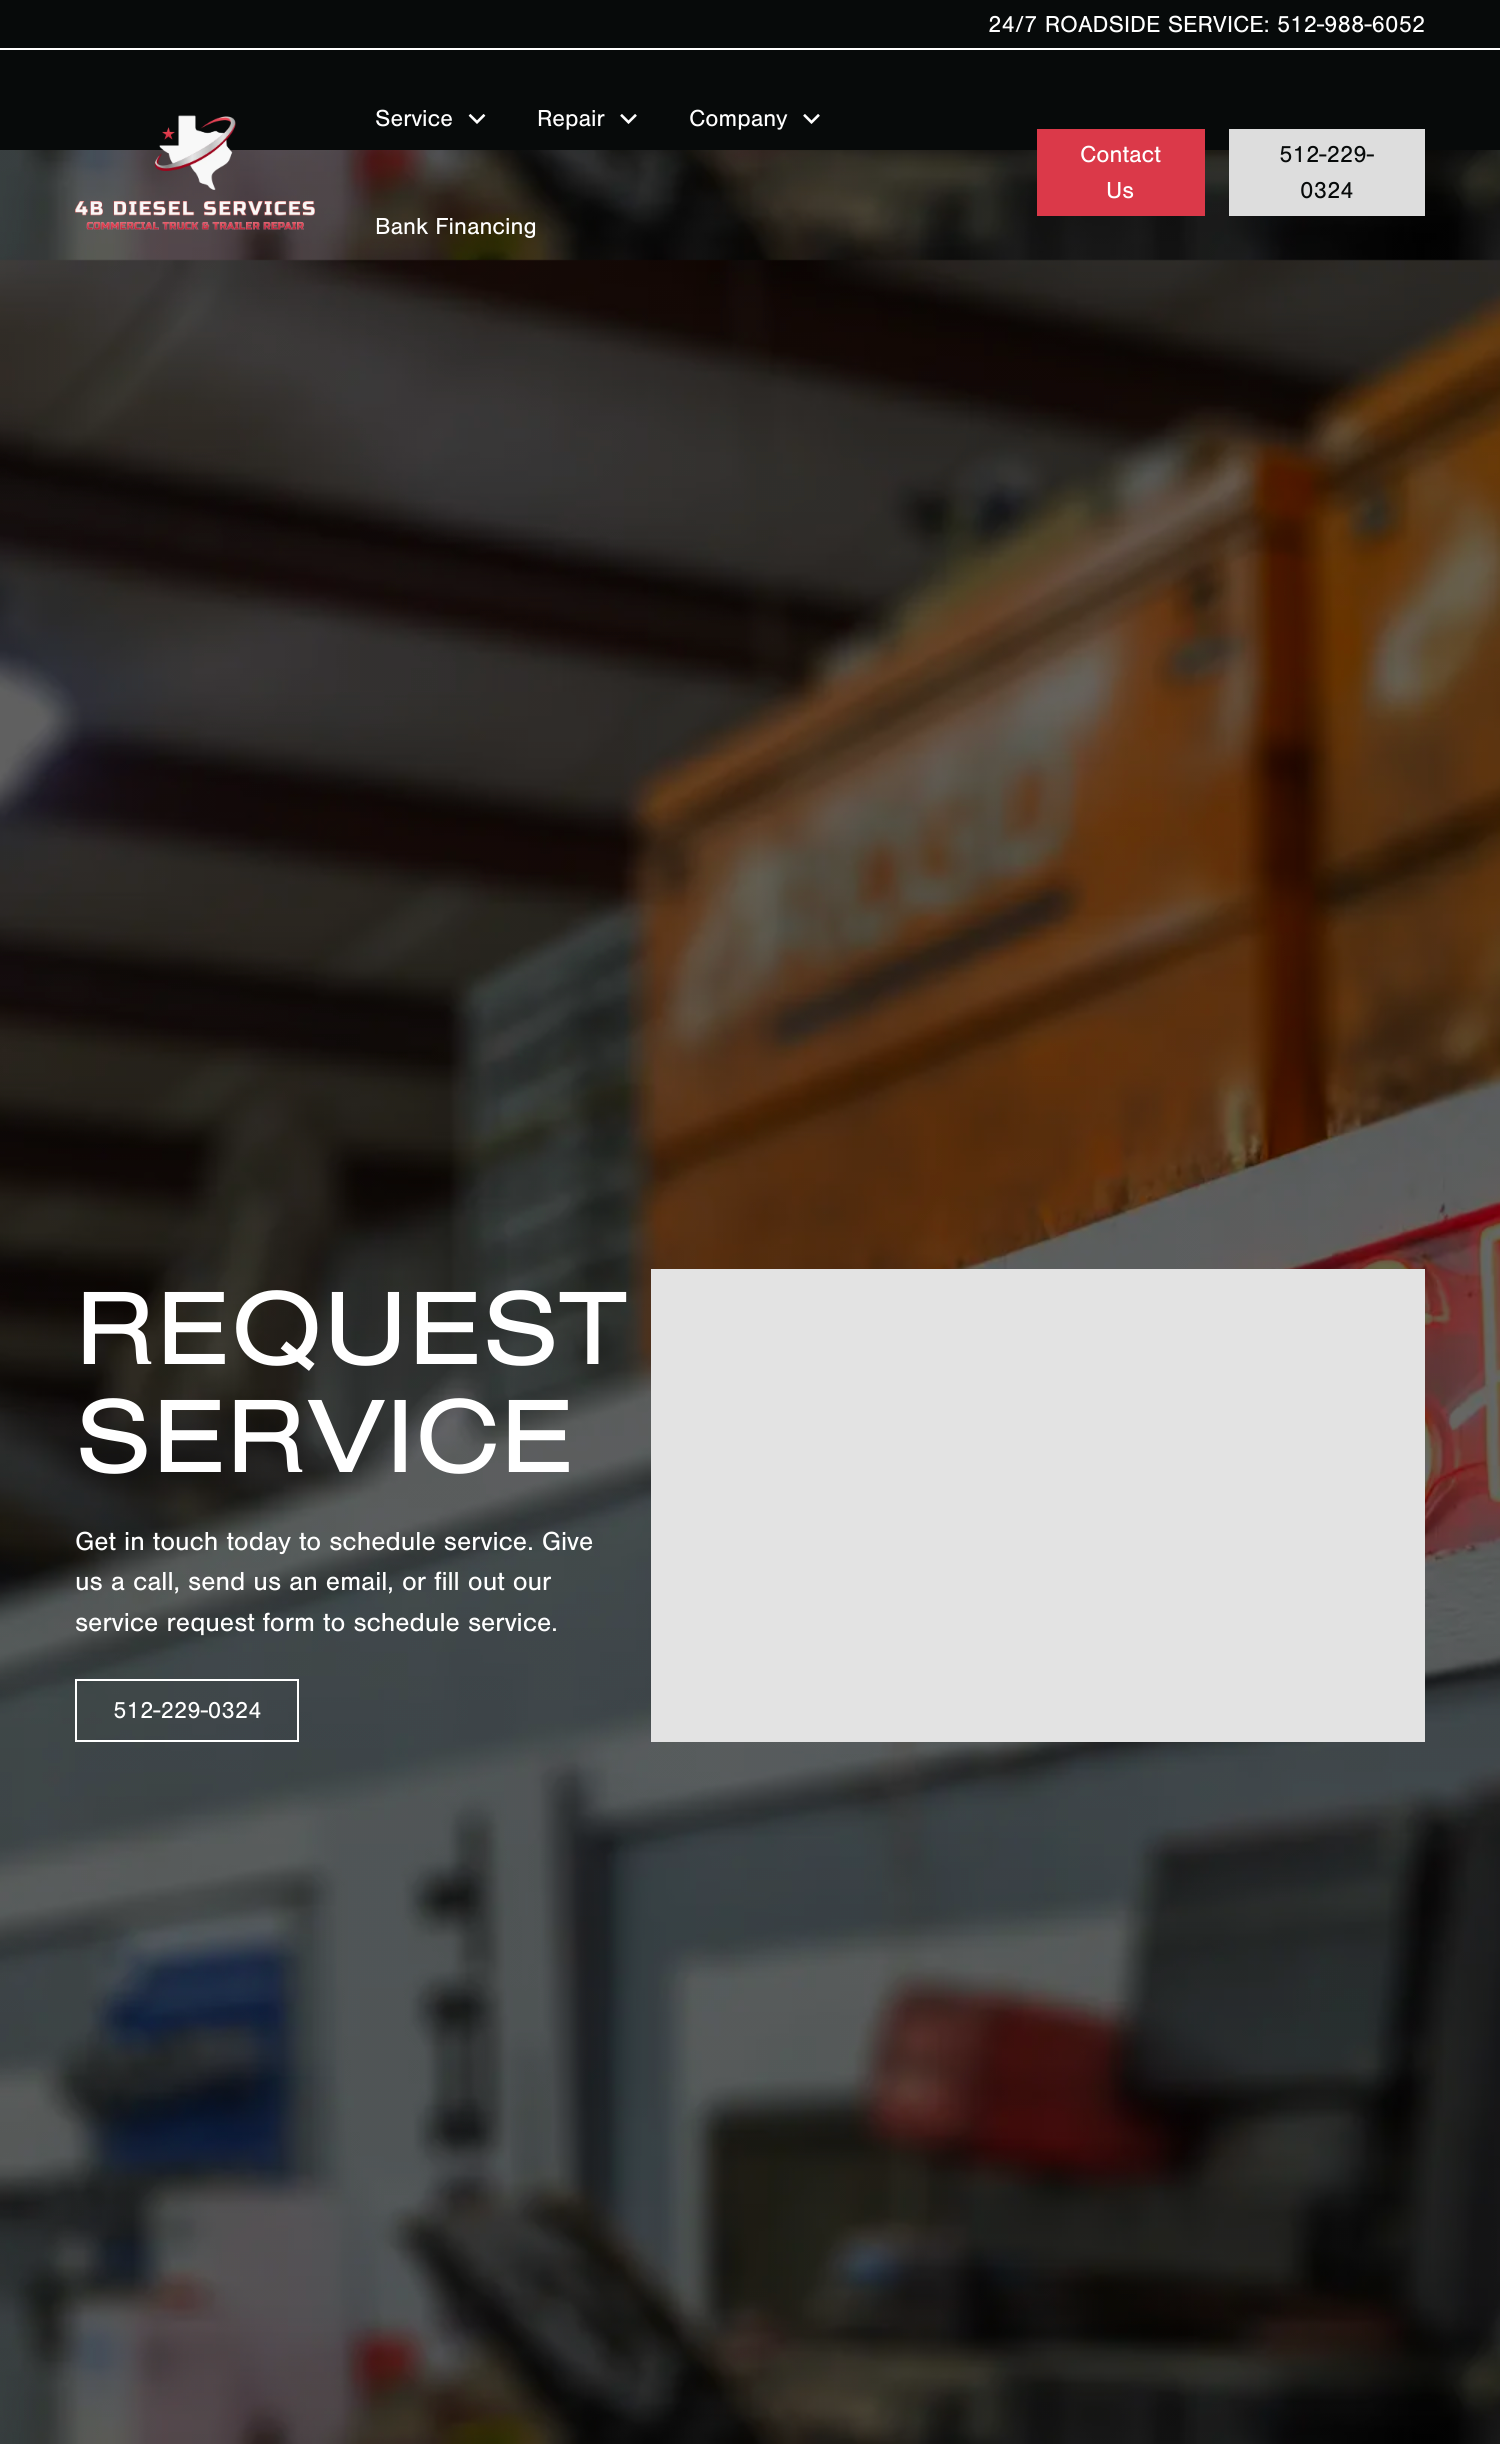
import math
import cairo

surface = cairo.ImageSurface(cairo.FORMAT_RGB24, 1500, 2444)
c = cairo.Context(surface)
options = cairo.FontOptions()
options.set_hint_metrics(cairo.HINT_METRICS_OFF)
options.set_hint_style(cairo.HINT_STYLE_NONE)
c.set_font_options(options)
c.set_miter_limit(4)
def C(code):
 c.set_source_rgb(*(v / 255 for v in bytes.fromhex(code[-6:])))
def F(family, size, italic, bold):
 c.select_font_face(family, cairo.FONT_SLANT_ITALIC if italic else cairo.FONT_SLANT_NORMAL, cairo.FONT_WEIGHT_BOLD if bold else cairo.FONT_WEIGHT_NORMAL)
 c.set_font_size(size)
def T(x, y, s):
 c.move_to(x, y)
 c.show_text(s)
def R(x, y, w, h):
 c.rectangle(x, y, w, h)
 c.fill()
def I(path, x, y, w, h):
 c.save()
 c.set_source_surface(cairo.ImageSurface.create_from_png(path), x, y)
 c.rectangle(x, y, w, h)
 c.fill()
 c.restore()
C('070a0a')
c.paint()
C('ffffff')
R(0,48,1500,2)
F('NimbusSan',24,0,0)
T(988,32,'24/7 ROADSIDE SERVICE: 512-988-6052')
I('4.png',0,150,1500,2294)
I('1.png',75,115,240,115)
T(375,126,'Service')
I('2.png',468,114,18,10)
T(537,126,'Repair')
I('3.png',620,114,17,10)
T(689,126,'Company')
I('3.png',803,114,17,10)
T(375,234,'Bank Financing')
C('db3949')
R(1037,129,168,87)
C('ffffff')
T(1080,162,'Contact')
T(1106,198,'Us')
C('dddddd')
R(1229,129,196,87)
C('070a0a')
T(1279,162,'512-229-')
T(1300,198,'0324')
F('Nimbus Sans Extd',108,0,0)
C('ffffff')
T(75,1364,'REQUEST')
T(75,1472,'SERVICE')
F('NimbusSan',27,0,0)
T(75,1550,'Get in touch today to schedule service. Give')
T(75,1590,'us a call, send us an email, or fill out our')
T(75,1631,'service request form to schedule service.')
c.rectangle(76,1680,222,61)
c.stroke()
F('NimbusSan',24,0,0)
T(113,1718,'512-229-0324')
C('e3e3e3')
R(651,1269,774,473)
surface.write_to_png('o.png')
